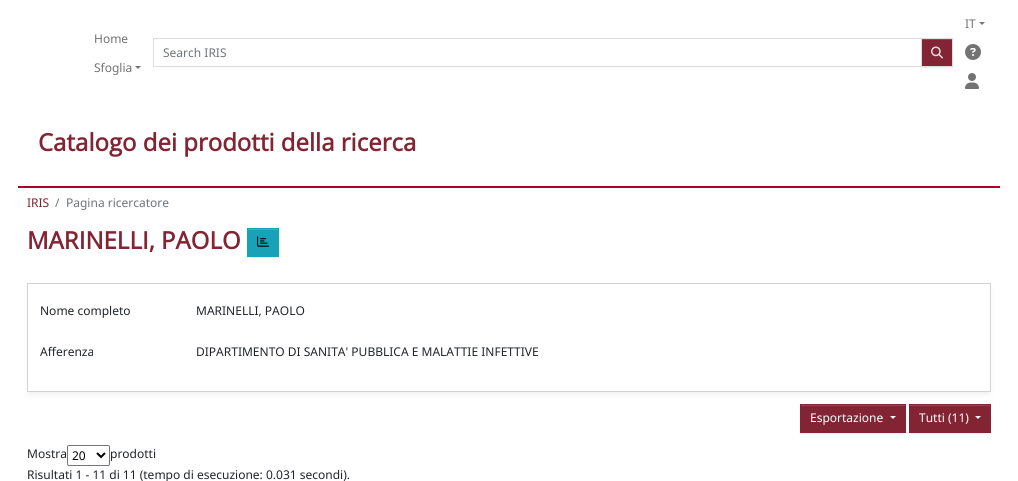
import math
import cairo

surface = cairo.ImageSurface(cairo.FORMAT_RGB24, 1018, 481)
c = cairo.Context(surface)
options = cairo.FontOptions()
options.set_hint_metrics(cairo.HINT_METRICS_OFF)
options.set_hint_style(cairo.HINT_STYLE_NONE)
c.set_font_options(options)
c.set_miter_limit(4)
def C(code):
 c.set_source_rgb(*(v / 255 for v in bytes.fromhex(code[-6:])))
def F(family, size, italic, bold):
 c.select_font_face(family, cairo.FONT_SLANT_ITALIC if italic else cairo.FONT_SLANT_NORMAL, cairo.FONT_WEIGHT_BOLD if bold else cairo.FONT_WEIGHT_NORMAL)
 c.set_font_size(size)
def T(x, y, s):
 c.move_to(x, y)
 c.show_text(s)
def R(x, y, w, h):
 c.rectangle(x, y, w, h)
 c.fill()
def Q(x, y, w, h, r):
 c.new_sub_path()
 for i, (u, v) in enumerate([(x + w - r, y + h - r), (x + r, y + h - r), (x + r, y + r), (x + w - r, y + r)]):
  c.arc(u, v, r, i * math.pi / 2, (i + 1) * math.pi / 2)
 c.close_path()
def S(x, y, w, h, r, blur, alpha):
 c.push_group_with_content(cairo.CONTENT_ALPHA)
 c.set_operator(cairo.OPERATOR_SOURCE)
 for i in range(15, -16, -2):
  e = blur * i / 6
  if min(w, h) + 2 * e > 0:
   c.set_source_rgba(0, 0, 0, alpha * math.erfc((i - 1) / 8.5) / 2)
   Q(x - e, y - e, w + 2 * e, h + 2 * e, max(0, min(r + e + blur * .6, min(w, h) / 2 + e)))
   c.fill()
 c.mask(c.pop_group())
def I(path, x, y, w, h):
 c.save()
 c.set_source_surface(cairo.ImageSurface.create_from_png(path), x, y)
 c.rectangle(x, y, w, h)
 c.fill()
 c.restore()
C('ffffff')
c.paint()
F('Noto Sans',12,0,0)
C('737373')
T(965,28,'IT')
c.new_path()
c.move_to(979,22)
c.line_to(985,22)
c.line_to(982,25)
c.close_path()
c.fill()
I('1.png',965,44,16,16)
I('2.png',965,73,14,16)
T(94,43,'Home')
T(94,72,'Sfoglia')
c.new_path()
c.move_to(135,66)
c.line_to(141,66)
c.line_to(138,69)
c.close_path()
c.fill()
c.rectangle(153.5,38.5,768,28)
C('dddddd')
c.set_line_width(1)
c.stroke()
C('6c757d')
T(163,57,'Search IRIS')
C('000000')
S(921,39,32,29,0,.5,.07)
C('822433')
R(922,40,30,26)
C('954552')
R(922,39,30,1)
c.rectangle(921.5,38.5,31,28)
C('dddddd')
c.stroke()
I('3.png',931,46,12,13)
C('a90329')
R(18,186,982,2)
F('Open Sans',24,0,1)
C('822433')
T(38,151,'Catalogo dei prodotti della ricerca')
F('Noto Sans',12,0,0)
T(27,207,'IRIS')
C('6c757d')
T(55,207,'/')
T(66,207,'Pagina ricercatore')
F('Open Sans',24,0,1)
C('822433')
T(27,249,'MARINELLI, PAOLO')
C('000000')
S(247,229,32,29,0,.5,.07)
C('17a2b8')
R(247,228,32,29)
C('3ab0c3')
R(248,229,30,1)
I('4.png',257,236,12,11)
c.save()
c.set_fill_rule(cairo.FILL_RULE_EVEN_ODD)
c.new_path()
c.move_to(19,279)
c.line_to(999,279)
c.line_to(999,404)
c.line_to(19,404)
c.close_path()
c.move_to(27,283)
c.line_to(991,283)
c.line_to(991,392)
c.line_to(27,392)
c.close_path()
c.clip()
C('eeeeee')
S(29,289,960,105,0,3,1)
c.restore()
c.rectangle(27.5,283.5,963,108)
C('d2d2d2')
c.stroke()
F('Noto Sans',12,0,0)
C('212529')
T(40,315,'Nome completo')
T(196,315,'MARINELLI, PAOLO')
T(40,356,'Afferenza')
T(196,356,'DIPARTIMENTO DI SANITA\' PUBBLICA E MALATTIE INFETTIVE')
C('000000')
S(800,405,106,29,0,.5,.07)
C('822433')
R(800,404,106,29)
C('954552')
R(801,405,104,1)
C('ffffff')
T(810,422,'Esportazione')
c.new_path()
c.move_to(890,416)
c.line_to(896,416)
c.line_to(893,419)
c.close_path()
c.fill()
C('000000')
S(909,405,82,29,0,.5,.07)
C('822433')
R(909,404,82,29)
C('954552')
R(910,405,80,1)
C('ffffff')
T(919,422,'Tutti (11)')
c.new_path()
c.move_to(975,416)
c.line_to(981,416)
c.line_to(978,419)
c.close_path()
c.fill()
C('212529')
T(27,458,'Mostra')
Q(67.5,445.5,42,20,1.5)
C('767676')
c.stroke()
c.new_path()
c.move_to(97,453)
c.line_to(101,457)
c.line_to(105,453)
C('000000')
c.set_line_width(2)
c.stroke()
T(72,460,'20')
C('212529')
T(110,458,'prodotti')
T(27,479,'Risultati 1 - 11 di 11 (tempo di esecuzione: 0.031 secondi).')
surface.write_to_png('o.png')
